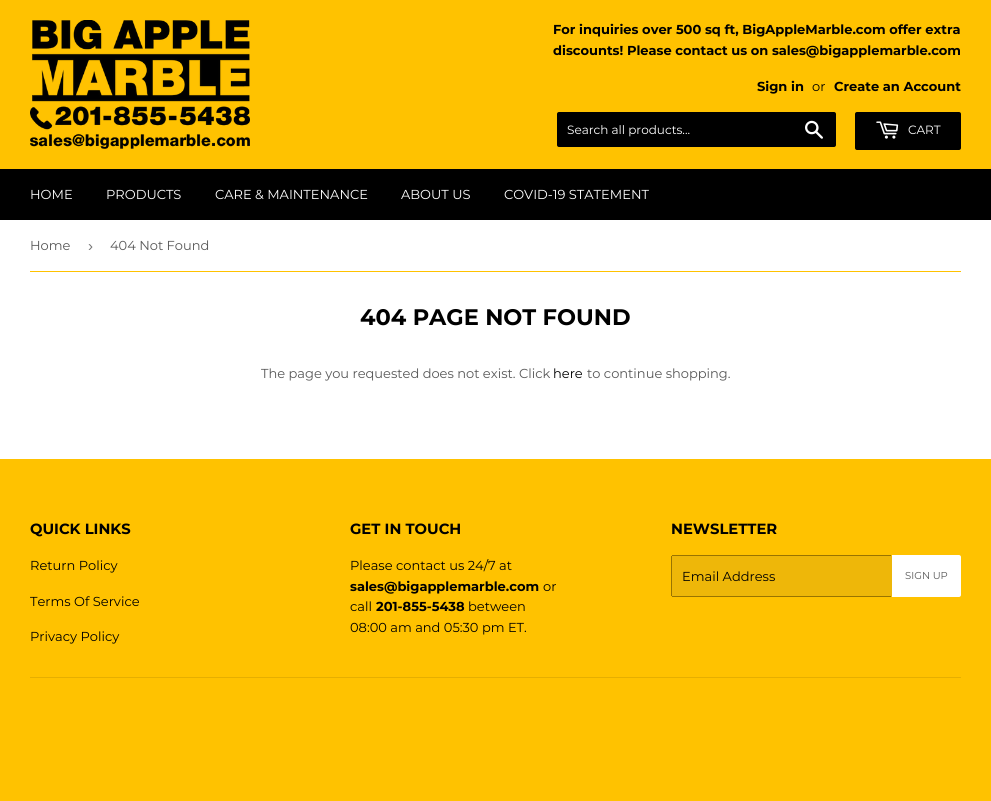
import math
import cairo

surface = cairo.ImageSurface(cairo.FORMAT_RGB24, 991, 801)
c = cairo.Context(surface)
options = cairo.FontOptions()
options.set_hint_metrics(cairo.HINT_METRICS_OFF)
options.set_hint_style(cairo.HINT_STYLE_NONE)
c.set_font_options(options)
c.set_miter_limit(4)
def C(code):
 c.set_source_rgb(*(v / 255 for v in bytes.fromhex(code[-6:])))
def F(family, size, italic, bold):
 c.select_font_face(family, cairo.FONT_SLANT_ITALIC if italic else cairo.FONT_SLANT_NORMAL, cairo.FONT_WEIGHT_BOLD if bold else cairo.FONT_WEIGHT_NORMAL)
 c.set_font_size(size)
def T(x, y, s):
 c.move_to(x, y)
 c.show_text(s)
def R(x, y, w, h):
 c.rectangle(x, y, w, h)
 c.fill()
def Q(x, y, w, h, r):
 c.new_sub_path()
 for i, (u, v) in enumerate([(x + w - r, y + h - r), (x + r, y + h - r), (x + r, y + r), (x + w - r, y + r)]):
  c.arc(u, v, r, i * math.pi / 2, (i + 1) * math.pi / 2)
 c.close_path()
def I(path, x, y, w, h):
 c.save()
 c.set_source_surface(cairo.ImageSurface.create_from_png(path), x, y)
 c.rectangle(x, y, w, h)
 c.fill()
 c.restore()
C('ffffff')
c.paint()
C('ffc200')
R(0,0,991,169)
I('1.png',30,20,220,129)
F('Montserrat',13,0,1)
C('000000')
T(553,34,'For inquiries over 500 sq ft, BigAppleMarble.com offer extra')
T(553,55,'discounts! Please contact us on sales@bigapplemarble.com')
T(757,91,'Sign in')
F('Montserrat',13,0,0)
T(812,91,'or')
F('Montserrat',13,0,1)
T(834,91,'Create an Account')
Q(557,112,279,35,2)
c.fill()
F('Montserrat',12,0,0)
C('ffffff')
T(567,134,'Search all products...')
I('2.png',805,120,18,19)
C('000000')
Q(855,112,106,38,2)
c.fill()
I('3.png',876,121,23,18)
C('ffffff')
T(908,134,'CART')
C('000000')
R(0,169,991,51)
F('Montserrat',13,0,0)
C('ffffff')
T(30,199,'HOME')
T(106,199,'PRODUCTS')
T(215,199,'CARE & MAINTENANCE')
T(401,199,'ABOUT US')
T(504,199,'COVID-19 STATEMENT')
C('ffc200')
R(30,271,931,1)
C('585858')
T(30,250,'Home')
F('Liberation Sans',15,0,0)
C('767676')
T(88,251,'›')
F('Montserrat',13,0,0)
C('585858')
T(110,250,'404 Not Found')
F('Montserrat',22.5,0,1)
C('000000')
T(360,325,'404 PAGE NOT FOUND')
F('Montserrat',13,0,0)
C('585858')
T(261,378,'The page you requested does not exist. Click')
C('000000')
T(553,378,'here')
C('585858')
T(587,378,'to continue shopping.')
C('ffc200')
R(0,459,991,342)
F('Montserrat',14.75,0,1)
C('000000')
T(30,534,'QUICK LINKS')
F('Montserrat',13,0,0)
T(30,570,'Return Policy')
T(30,606,'Terms Of Service')
T(30,641,'Privacy Policy')
F('Montserrat',14.75,0,1)
T(350,534,'GET IN TOUCH')
F('Montserrat',13,0,0)
T(350,570,'Please contact us 24/7 at')
F('Montserrat',13,0,1)
T(350,591,'sales@bigapplemarble.com')
F('Montserrat',13,0,0)
T(543,591,'or')
T(350,611,'call')
F('Montserrat',13,0,1)
T(376,611,'201-855-5438')
F('Montserrat',13,0,0)
T(468,611,'between')
T(350,632,'08:00 am and 05:30 pm ET.')
F('Montserrat',14.75,0,1)
T(671,534,'NEWSLETTER')
C('eeb709')
Q(671,555,221,42,2)
c.fill()
C('997400')
R(672,555,219,1)
R(672,596,219,1)
R(671,556,1,40)
F('Montserrat',13,0,0)
C('000000')
T(682,581,'Email Address')
C('ffffff')
c.new_path()
c.move_to(892,555)
c.line_to(959,555)
c.curve_to(960,555,961,556,961,557)
c.line_to(961,595)
c.curve_to(961,596,960,597,959,597)
c.line_to(892,597)
c.close_path()
c.fill()
F('Montserrat',10,0,0)
C('585858')
T(905,579,'SIGN UP')
C('e6af00')
R(30,677,931,1)
surface.write_to_png('o.png')
